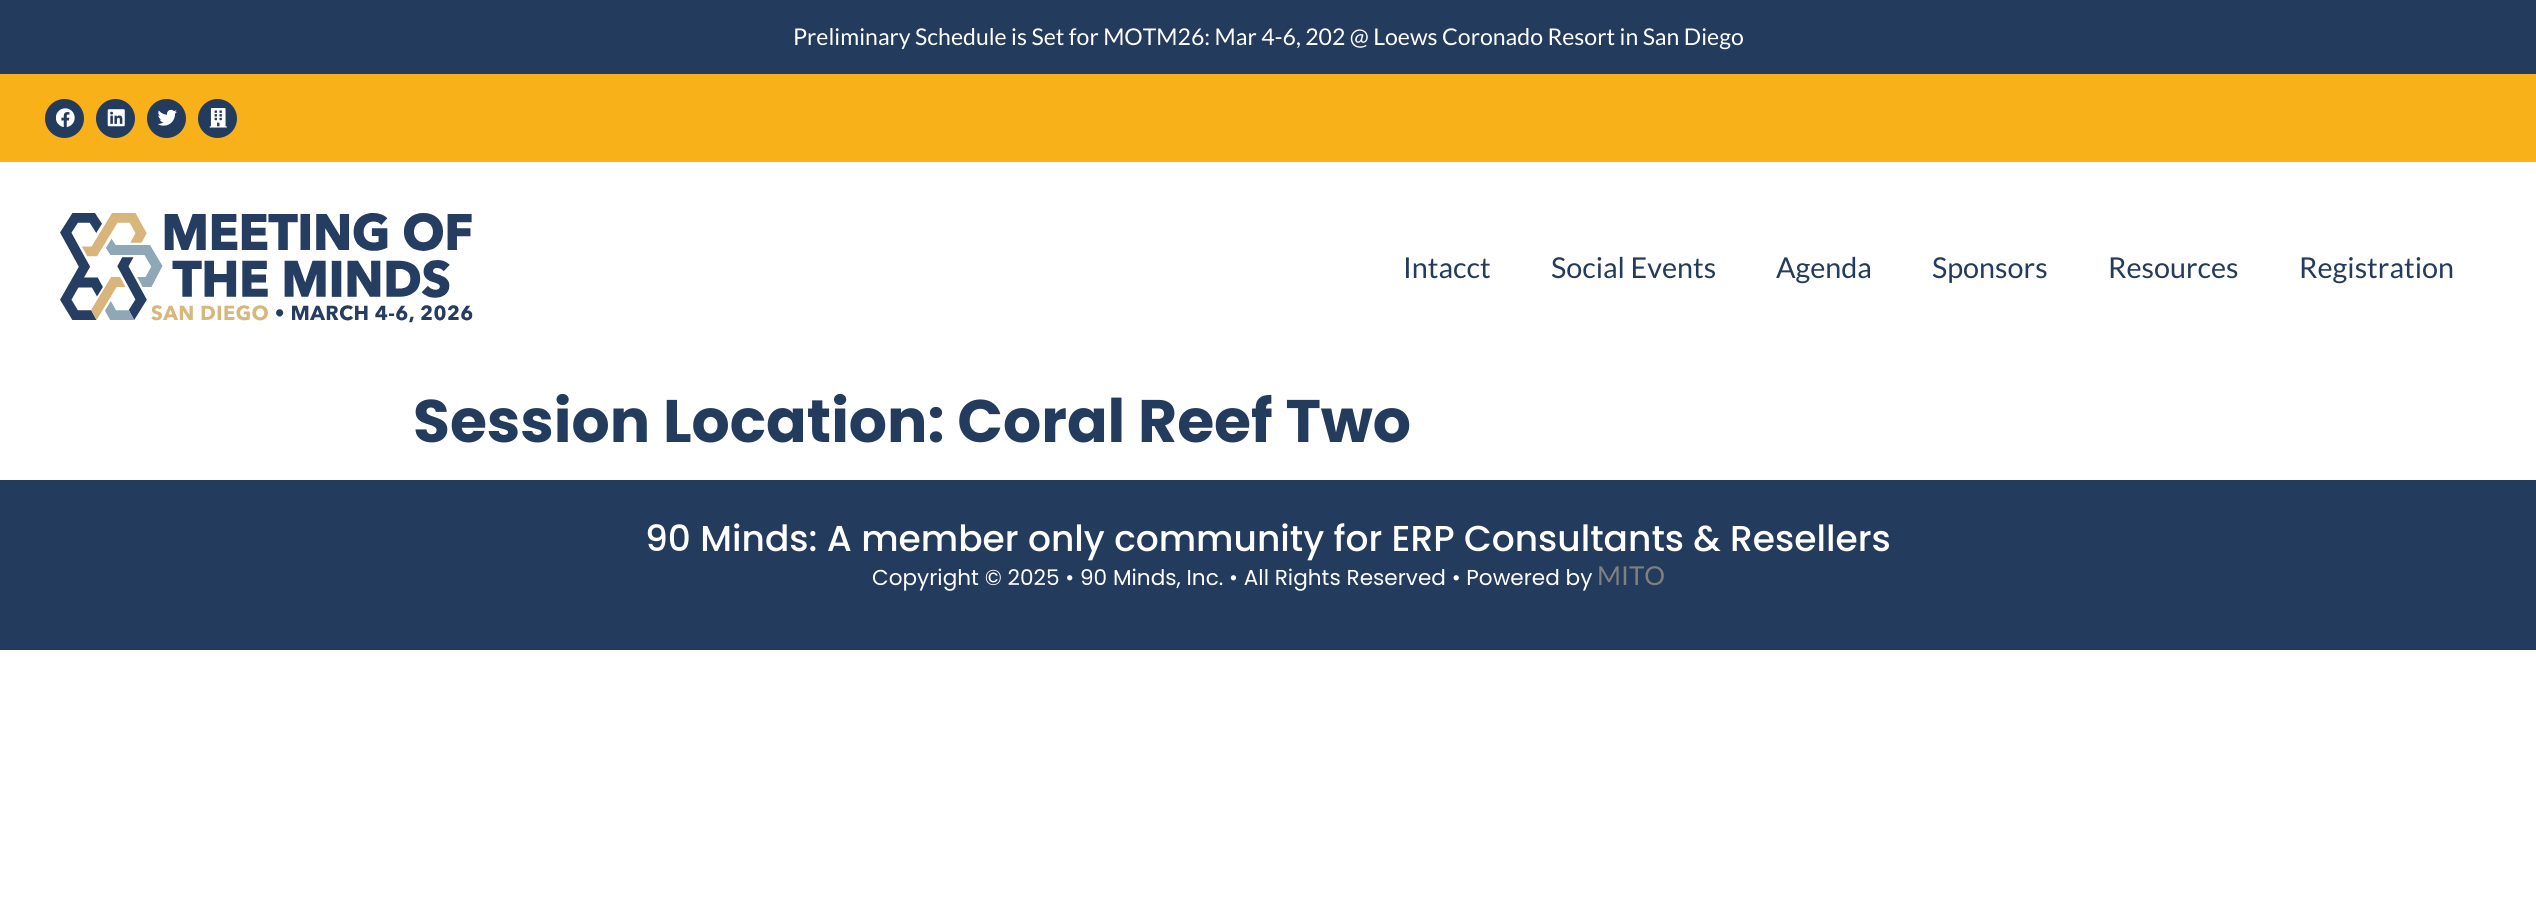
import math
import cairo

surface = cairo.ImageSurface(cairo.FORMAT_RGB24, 2536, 918)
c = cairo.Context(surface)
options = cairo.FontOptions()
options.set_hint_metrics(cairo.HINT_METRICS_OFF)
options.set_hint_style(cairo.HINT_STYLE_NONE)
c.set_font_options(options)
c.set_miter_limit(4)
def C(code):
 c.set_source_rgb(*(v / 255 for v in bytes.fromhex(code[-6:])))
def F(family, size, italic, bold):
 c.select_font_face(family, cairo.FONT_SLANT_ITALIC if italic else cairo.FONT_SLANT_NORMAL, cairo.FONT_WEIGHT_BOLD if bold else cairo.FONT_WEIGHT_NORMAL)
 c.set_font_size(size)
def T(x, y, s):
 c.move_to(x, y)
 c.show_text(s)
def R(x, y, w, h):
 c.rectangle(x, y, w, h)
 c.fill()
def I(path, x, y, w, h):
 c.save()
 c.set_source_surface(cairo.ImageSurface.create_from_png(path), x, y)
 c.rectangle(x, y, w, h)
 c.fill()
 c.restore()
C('ffffff')
c.paint()
C('233b5d')
R(0,0,2536,74)
F('Lato',23.05,0,0)
C('ffffff')
T(793,45,'Preliminary Schedule is Set for MOTM26: Mar 4-6, 202 @ Loews Coronado Resort in San Diego')
C('f9b119')
R(0,74,2536,88)
C('233b5d')
c.new_path()
c.arc(64.5,118.5,19.5,0,2 * math.pi)
c.fill()
I('1.png',56,108,19,19)
c.arc(115.5,118.5,19.5,0,2 * math.pi)
c.fill()
I('2.png',107,109,18,18)
c.arc(166.5,118.5,19.5,0,2 * math.pi)
c.fill()
I('3.png',158,109,19,17)
c.arc(217.5,118.5,19.5,0,2 * math.pi)
c.fill()
I('4.png',209,108,18,20)
I('5.png',60,213,413,110)
F('Lato',28.75,0,0)
T(1403,278,'Intacct')
T(1551,278,'Social Events')
T(1776,278,'Agenda')
T(1932,278,'Sponsors')
T(2108,278,'Resources')
T(2299,278,'Registration')
F('Poppins',60,0,1)
T(413,442,'Session Location: Coral Reef Two')
R(0,480,2536,170)
F('Poppins Medium',36,0,0)
C('ffffff')
T(645,551,'90 Minds: A member only community for ERP Consultants & Resellers')
F('Poppins',21.6,0,0)
T(872,585,'Copyright © 2025 • 90 Minds, Inc. • All Rights Reserved • Powered by')
F('Lato',26,0,0)
C('808080')
T(1597,585,'MITO')
surface.write_to_png('o.png')
